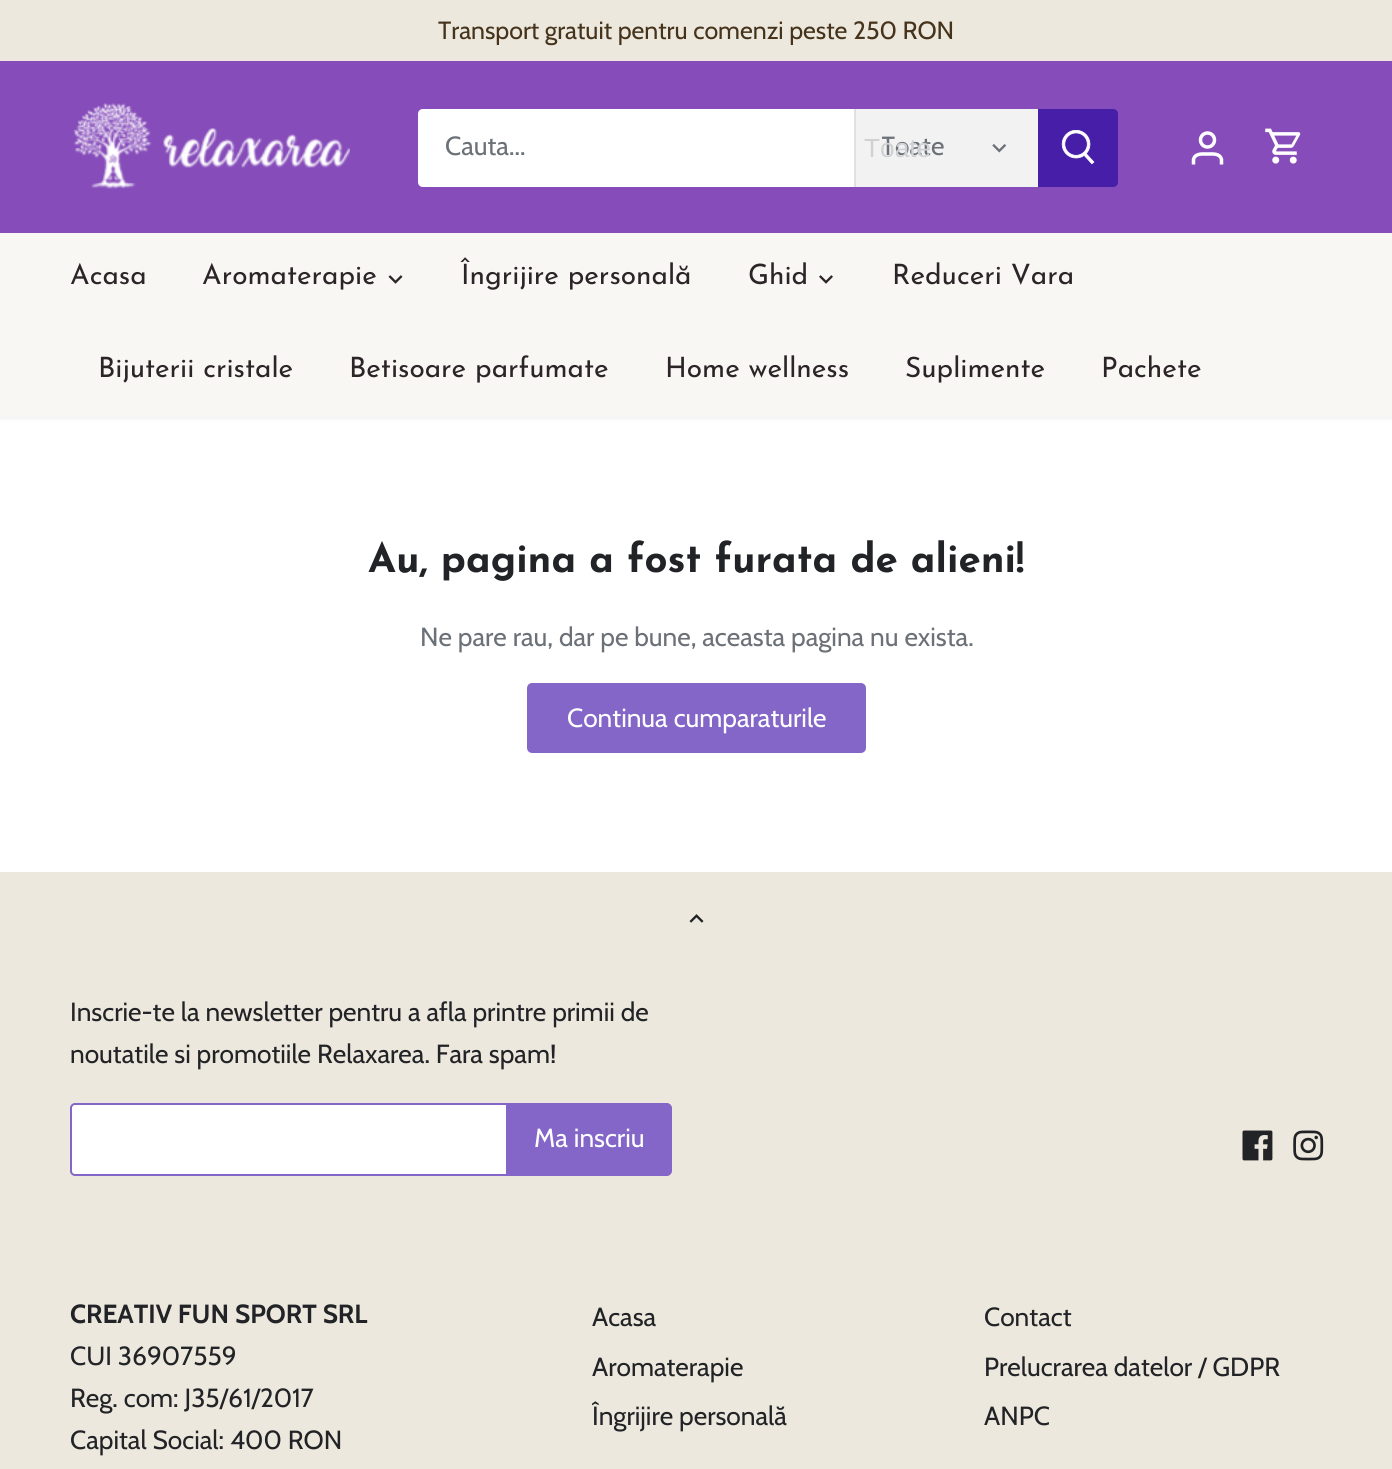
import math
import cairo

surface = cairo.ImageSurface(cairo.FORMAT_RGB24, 1392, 1469)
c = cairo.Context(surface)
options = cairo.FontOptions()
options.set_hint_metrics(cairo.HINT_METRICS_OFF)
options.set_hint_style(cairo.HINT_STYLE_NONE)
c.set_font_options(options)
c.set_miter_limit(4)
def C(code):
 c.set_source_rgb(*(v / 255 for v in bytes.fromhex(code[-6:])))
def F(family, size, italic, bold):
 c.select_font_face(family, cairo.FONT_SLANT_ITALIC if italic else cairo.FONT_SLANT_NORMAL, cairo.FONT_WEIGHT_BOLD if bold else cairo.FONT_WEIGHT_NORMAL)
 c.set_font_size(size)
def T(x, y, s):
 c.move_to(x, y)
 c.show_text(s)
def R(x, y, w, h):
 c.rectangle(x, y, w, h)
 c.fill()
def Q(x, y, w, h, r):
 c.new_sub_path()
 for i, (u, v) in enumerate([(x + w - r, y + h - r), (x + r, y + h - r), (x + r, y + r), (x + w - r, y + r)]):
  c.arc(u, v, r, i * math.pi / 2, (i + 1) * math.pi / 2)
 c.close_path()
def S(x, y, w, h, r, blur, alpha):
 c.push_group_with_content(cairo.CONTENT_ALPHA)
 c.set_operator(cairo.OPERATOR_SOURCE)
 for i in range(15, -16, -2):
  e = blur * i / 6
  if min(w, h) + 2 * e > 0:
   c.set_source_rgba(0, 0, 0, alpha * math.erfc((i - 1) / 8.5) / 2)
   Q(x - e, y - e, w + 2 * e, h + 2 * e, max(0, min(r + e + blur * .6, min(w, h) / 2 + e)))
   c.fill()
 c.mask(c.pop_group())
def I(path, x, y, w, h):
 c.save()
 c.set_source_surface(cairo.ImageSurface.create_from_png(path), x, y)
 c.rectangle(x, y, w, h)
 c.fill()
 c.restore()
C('ede8dd')
c.paint()
C('ffffff')
R(0,417,1392,455)
C('000000')
S(-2,60,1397,358,0,2.5,.08)
C('ede8dd')
R(0,57,1392,4)
F('Cabin',24.9,0,0)
C('45331b')
T(438,39,'Transport gratuit pentru comenzi peste 250 RON')
C('f9f7f4')
R(0,233,1392,184)
C('864cba')
R(0,61,1392,172)
I('1.png',73,103,277,86)
C('ffffff')
c.new_path()
c.move_to(423,109)
c.line_to(854,109)
c.line_to(854,187)
c.line_to(423,187)
c.curve_to(420,187,418,185,418,182)
c.line_to(418,114)
c.curve_to(418,111,420,109,423,109)
c.close_path()
c.fill()
F('Cabin',26.25,0,0)
C('6b7177')
T(445,155,'Cauta...')
C('f2f2f2')
R(856,109,182,78)
C('e0e1e2')
R(854,109,2,78)
c.save()
c.rectangle(882,130,131,35)
c.clip()
C('6b7177')
T(881,155,'Toate')
c.restore()
F('Liberation Sans',26.25,0,0)
C('d0d1d3')
T(864,157,'Toate')
I('2.png',992,144,15,9)
C('471ea7')
c.new_path()
c.move_to(1038,109)
c.line_to(1113,109)
c.curve_to(1116,109,1118,111,1118,114)
c.line_to(1118,182)
c.curve_to(1118,185,1116,187,1113,187)
c.line_to(1038,187)
c.close_path()
c.fill()
I('3.png',1061,130,34,35)
c.arc(1207.5,140,7,0,2 * math.pi)
C('ffffff')
c.set_line_width(3.5)
c.stroke()
c.new_path()
c.move_to(1221.5,164.5)
c.line_to(1221.5,159.5)
c.curve_to(1220,153,1212.5,154,1207.5,154)
c.curve_to(1202.5,154,1195,153,1193.5,159.5)
c.line_to(1193.5,164.5)
c.stroke()
I('4.png',1265,128,36,36)
F('Josefin Sans',28,0,0)
C('2c2528')
T(70,284,'Acasa')
T(202,284,'Aromaterapie')
I('5.png',388,275,15,9)
T(461,284,'Îngrijire personală')
T(748,284,'Ghid')
I('6.png',819,275,14,9)
T(892,284,'Reduceri Vara')
T(98,377,'Bijuterii cristale')
T(349,377,'Betisoare parfumate')
T(665,377,'Home wellness')
T(905,377,'Suplimente')
T(1101,377,'Pachete')
F('Josefin Sans',40.25,0,1)
C('212326')
T(368,572,'Au, pagina a fost furata de alieni!')
F('Cabin',26.25,0,0)
C('6b7177')
T(420,646,'Ne pare rau, dar pe bune, aceasta pagina nu exista.')
C('8366c7')
Q(529,685,335,66,3)
c.fill_preserve()
c.set_line_width(4)
c.stroke()
C('ffffff')
T(567,727,'Continua cumparaturile')
I('7.png',689,914,15,9)
C('212326')
T(70,1021,'Inscrie-te la newsletter pentru a afla printre primii de')
T(70,1063,'noutatile si promotiile Relaxarea. Fara spam!')
C('ffffff')
Q(71,1104,598,71,4)
c.fill_preserve()
C('8366c7')
c.set_line_width(2)
c.stroke()
c.new_path()
c.move_to(507,1104)
c.line_to(667,1104)
c.curve_to(669,1104,671,1106,671,1108)
c.line_to(671,1171)
c.curve_to(671,1173,669,1175,667,1175)
c.line_to(507,1175)
c.close_path()
c.fill_preserve()
c.stroke()
C('ffffff')
T(534,1147,'Ma inscriu')
I('8.png',1242,1130,31,31)
I('9.png',1293,1130,31,31)
F('Cabin',26.25,0,1)
C('212326')
T(70,1323,'CREATIV FUN SPORT SRL')
F('Cabin',26.25,0,0)
T(70,1365,'CUI 36907559')
T(70,1407,'Reg. com: J35/61/2017')
T(70,1449,'Capital Social: 400 RON')
T(592,1326,'Acasa')
T(592,1376,'Aromaterapie')
T(592,1425,'Îngrijire personală')
T(984,1326,'Contact')
T(984,1376,'Prelucrarea datelor / GDPR')
T(984,1425,'ANPC')
surface.write_to_png('o.png')
